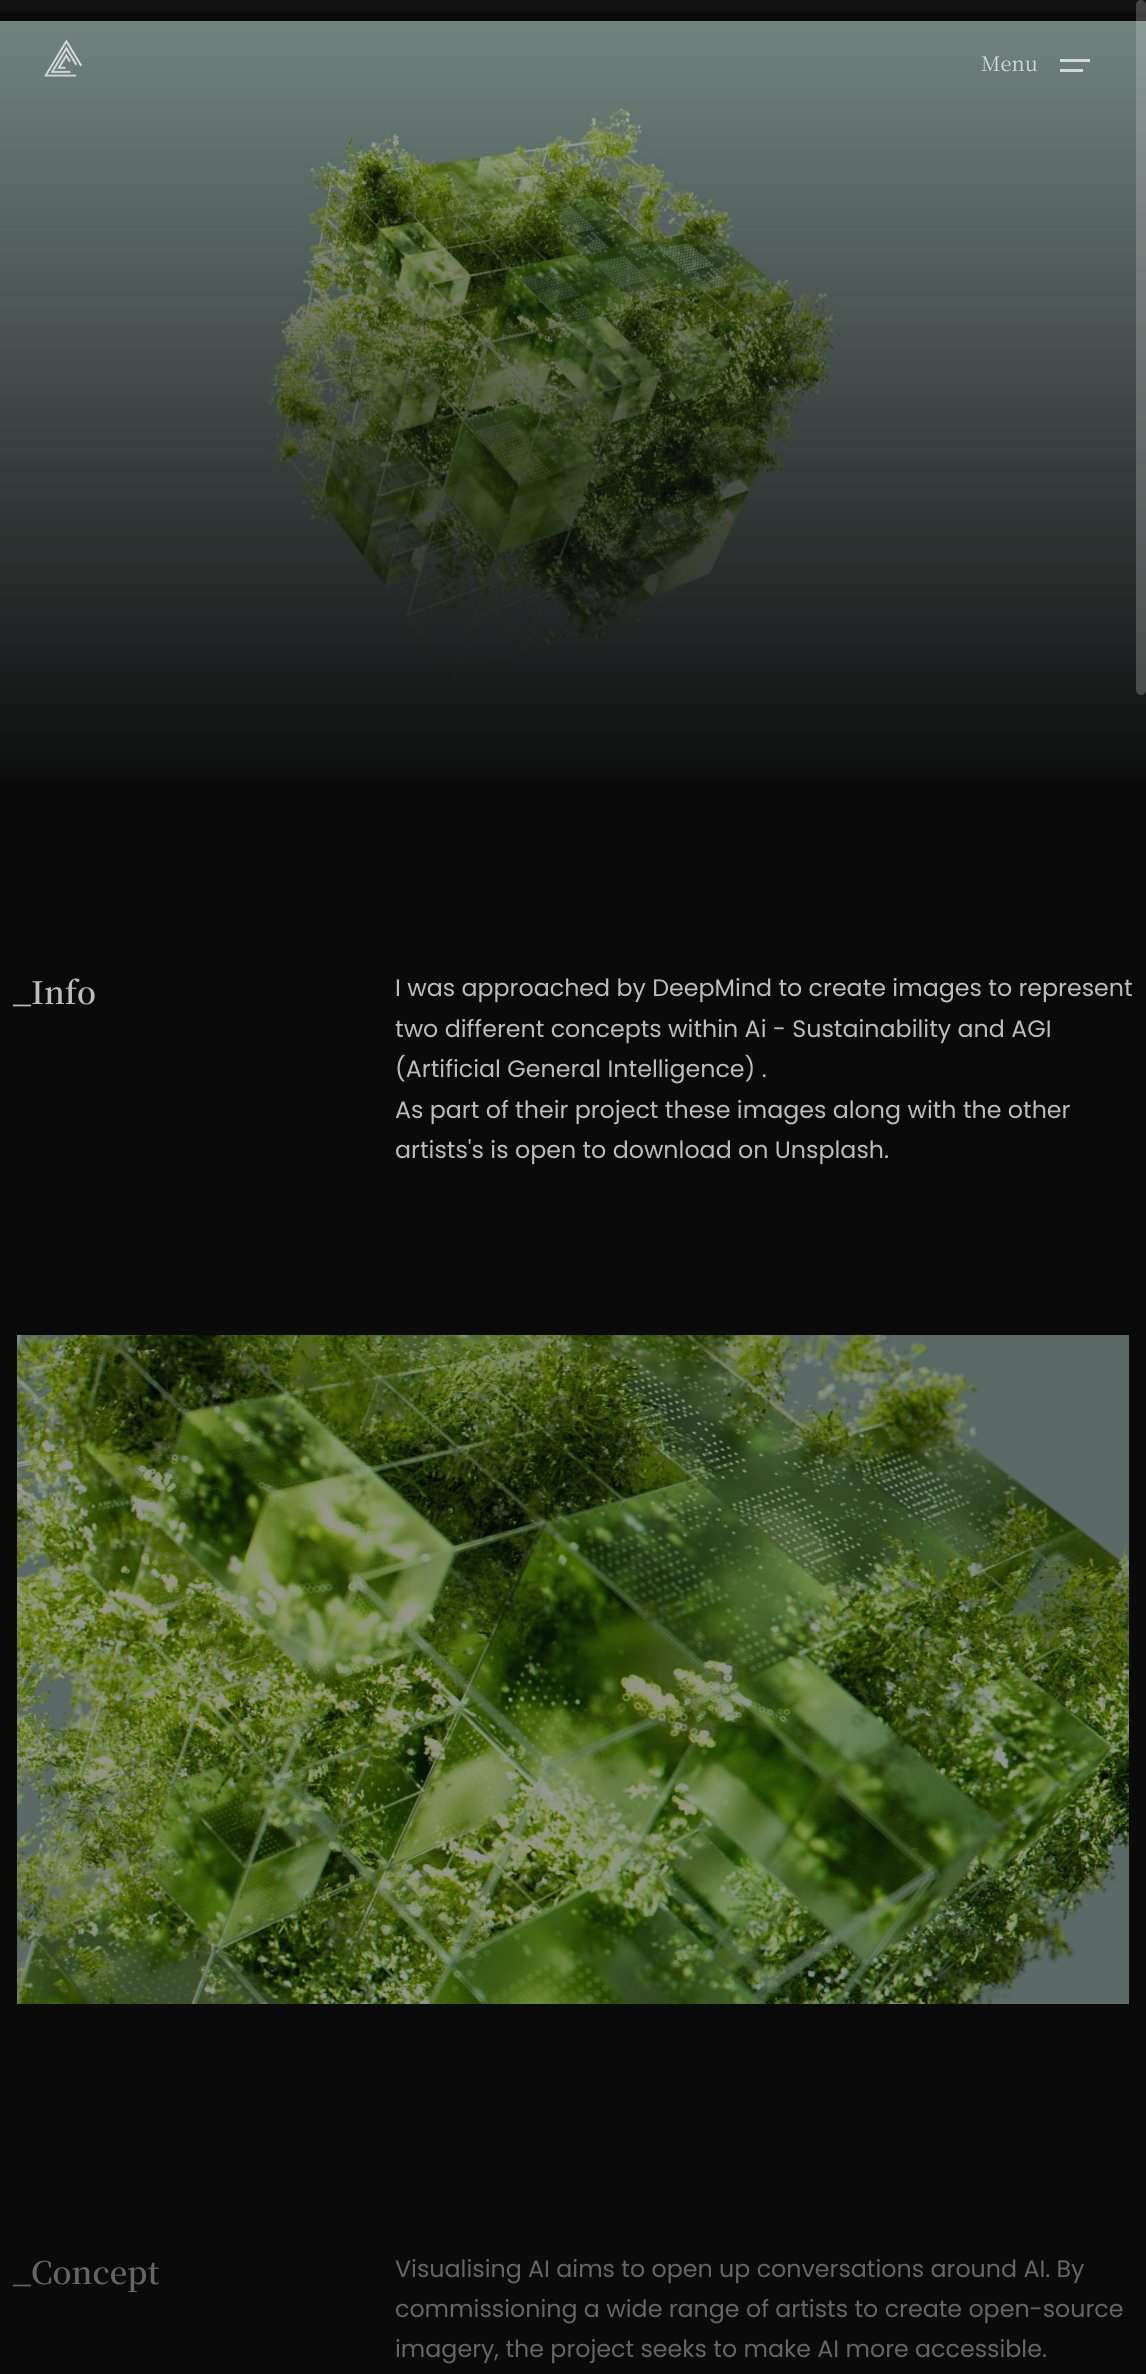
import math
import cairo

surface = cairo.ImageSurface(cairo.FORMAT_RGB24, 1146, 2374)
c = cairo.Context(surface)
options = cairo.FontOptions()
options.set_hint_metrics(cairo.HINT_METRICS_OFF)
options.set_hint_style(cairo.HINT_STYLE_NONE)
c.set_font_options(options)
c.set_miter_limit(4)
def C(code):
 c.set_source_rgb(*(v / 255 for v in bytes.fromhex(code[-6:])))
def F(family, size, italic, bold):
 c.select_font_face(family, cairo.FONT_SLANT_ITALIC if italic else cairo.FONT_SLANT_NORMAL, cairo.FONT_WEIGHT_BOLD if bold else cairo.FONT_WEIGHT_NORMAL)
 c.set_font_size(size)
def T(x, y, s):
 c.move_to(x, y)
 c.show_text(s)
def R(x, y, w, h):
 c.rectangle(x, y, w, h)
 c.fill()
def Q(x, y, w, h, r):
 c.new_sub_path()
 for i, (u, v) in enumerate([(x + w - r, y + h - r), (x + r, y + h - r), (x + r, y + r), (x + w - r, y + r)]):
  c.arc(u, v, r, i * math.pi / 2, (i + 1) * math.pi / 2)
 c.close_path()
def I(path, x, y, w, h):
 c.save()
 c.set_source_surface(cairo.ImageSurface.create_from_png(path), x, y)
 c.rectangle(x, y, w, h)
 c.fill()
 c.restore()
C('0a0a0a')
c.paint()
C('111111')
R(0,0,1146,11)
I('2.png',0,21,1146,752)
gradient = cairo.LinearGradient(573,778,573,-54)
gradient.add_color_stop_rgba(0,0.051,0.051,0.051,1)
gradient.add_color_stop_rgba(1,0.051,0.051,0.051,0)
c.set_source(gradient)
R(0,21,1146,757)
I('1.png',44,39,38,38)
F('Noto Serif JP',20,0,0)
C('d4dad9')
T(981,71,'Menu')
R(1060,59,30,3)
C('d4d9d8')
R(1060,69,23,3)
c.set_source_rgba(0.867,0.867,0.867,0.25)
Q(1136,0,10,695,5)
c.fill()
F('Noto Serif JP SemiBold',31,0,0)
C('bdbdbd')
T(13,1004,'_Info')
F('Poppins',23.75,0,0)
T(395,996,'I was approached by DeepMind to create images to represent')
T(395,1037,'two different concepts within Ai - Sustainability and AGI')
T(395,1077,'(Artificial General Intelligence) .')
T(395,1118,'As part of their project these images along with the other')
T(395,1158,'artists\'s is open to download on Unsplash.')
I('3.png',17,1335,1112,669)
F('Noto Serif JP SemiBold',31,0,0)
C('656565')
T(13,2284,'_Concept')
F('Poppins',23.75,0,0)
T(395,2277,'Visualising AI aims to open up conversations around AI. By')
T(395,2317,'commissioning a wide range of artists to create open-source')
T(395,2357,'imagery, the project seeks to make AI more accessible.')
surface.write_to_png('o.png')
